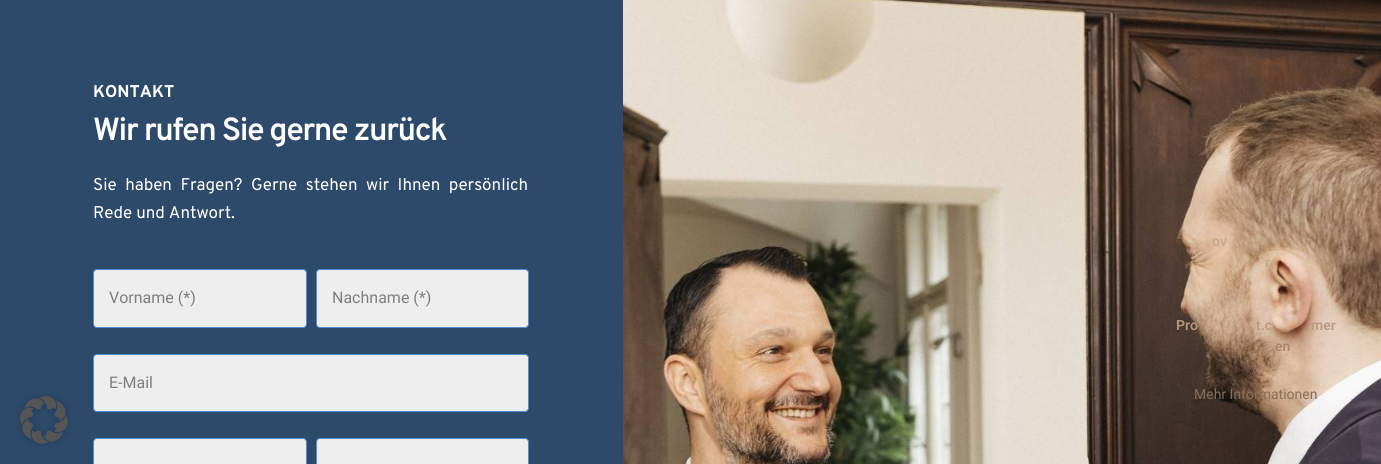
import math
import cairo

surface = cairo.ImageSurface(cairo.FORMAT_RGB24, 1381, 464)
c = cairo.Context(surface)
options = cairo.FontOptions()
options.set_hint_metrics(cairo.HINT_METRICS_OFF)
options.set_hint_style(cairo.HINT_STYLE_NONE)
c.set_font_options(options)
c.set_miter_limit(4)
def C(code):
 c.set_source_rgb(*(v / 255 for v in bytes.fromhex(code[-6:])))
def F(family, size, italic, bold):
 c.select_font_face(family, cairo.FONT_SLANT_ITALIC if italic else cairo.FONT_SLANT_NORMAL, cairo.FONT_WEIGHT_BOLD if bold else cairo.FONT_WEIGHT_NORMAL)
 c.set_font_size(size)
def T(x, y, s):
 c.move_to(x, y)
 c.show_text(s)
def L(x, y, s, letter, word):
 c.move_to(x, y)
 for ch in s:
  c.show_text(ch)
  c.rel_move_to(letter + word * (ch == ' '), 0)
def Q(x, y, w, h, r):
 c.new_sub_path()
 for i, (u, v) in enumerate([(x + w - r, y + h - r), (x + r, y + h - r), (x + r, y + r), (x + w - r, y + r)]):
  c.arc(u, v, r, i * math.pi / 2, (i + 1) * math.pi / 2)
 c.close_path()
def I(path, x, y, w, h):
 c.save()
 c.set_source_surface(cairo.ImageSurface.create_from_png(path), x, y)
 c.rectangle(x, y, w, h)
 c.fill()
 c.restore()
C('2d4a6a')
c.paint()
F('Overpass',17,0,1)
C('ffffff')
T(93,97,'KONTAKT')
F('Overpass SemiBold',32,0,0)
L(93,140,'Wir rufen Sie gerne zurück',-1.5,0)
F('Overpass',17,0,0)
L(93,190,'Sie haben Fragen? Gerne stehen wir Ihnen persönlich',0,4.5)
T(93,218,'Rede und Antwort.')
C('eeeeee')
Q(93.5,269.5,213,58,3.5)
c.fill_preserve()
C('518dd1')
c.set_line_width(1)
c.stroke()
F('Roboto',16,0,0)
C('7e7e7e')
T(109,303,'Vorname (*)')
C('eeeeee')
Q(316.5,269.5,212,58,3.5)
c.fill_preserve()
C('518dd1')
c.stroke()
C('7e7e7e')
T(332,303,'Nachname (*)')
C('eeeeee')
Q(93.5,354.5,435,57,3.5)
c.fill_preserve()
C('518dd1')
c.stroke()
C('7e7e7e')
T(109,388,'E-Mail')
C('eeeeee')
Q(93.5,438.5,213,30,3.5)
c.fill_preserve()
C('518dd1')
c.stroke()
C('eeeeee')
Q(316.5,438.5,212,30,3.5)
c.fill_preserve()
C('518dd1')
c.stroke()
I('1.png',623,0,758,464)
F('Roboto SemiBold',14,0,0)
C('c8a789')
T(1212,246,'ov')
T(1283,246,'.')
T(1265,267,'r')
C('b99981')
T(1176,330,'Pro')
T(1256,330,'t.c')
T(1311,330,'mer')
C('a9876b')
T(1275,351,'en')
F('Roboto',14,0,0)
C('866e5a')
T(1194,399,'Mehr Informationen')
I('2.png',17,393,54,54)
surface.write_to_png('o.png')
